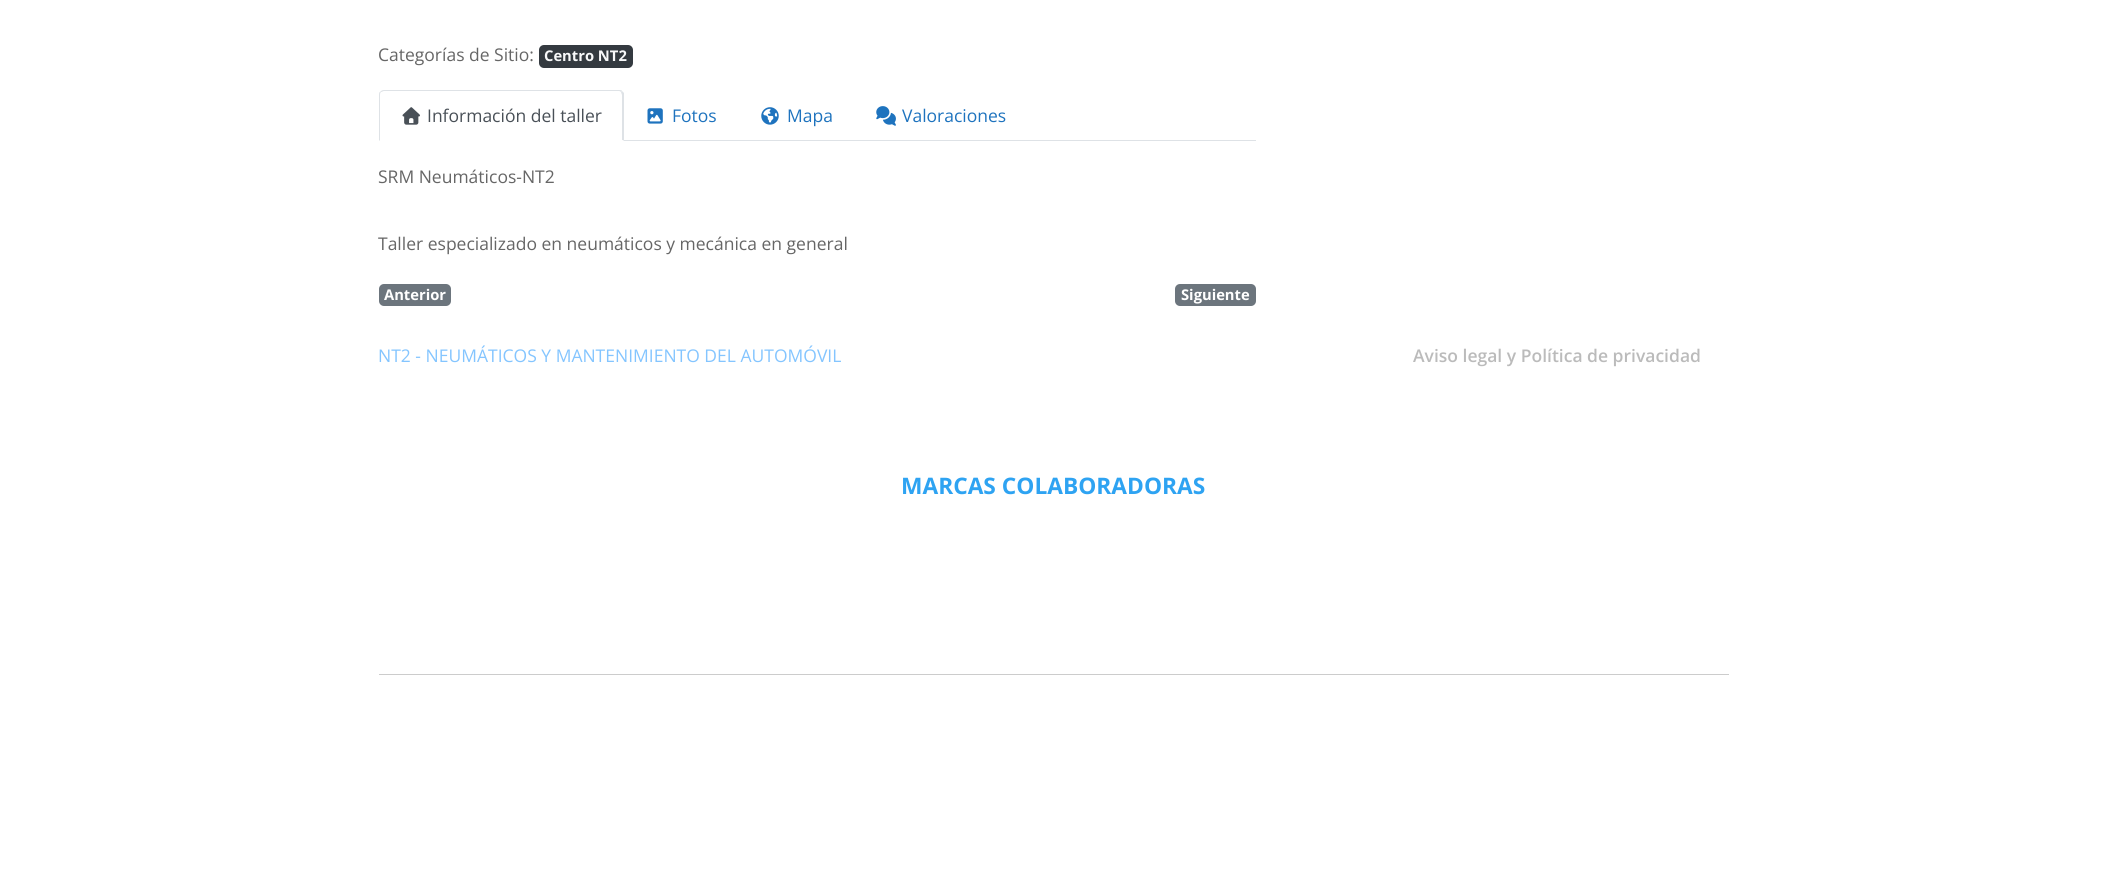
import math
import cairo

surface = cairo.ImageSurface(cairo.FORMAT_RGB24, 2106, 888)
c = cairo.Context(surface)
options = cairo.FontOptions()
options.set_hint_metrics(cairo.HINT_METRICS_OFF)
options.set_hint_style(cairo.HINT_STYLE_NONE)
c.set_font_options(options)
c.set_miter_limit(4)
def C(code):
 c.set_source_rgb(*(v / 255 for v in bytes.fromhex(code[-6:])))
def F(family, size, italic, bold):
 c.select_font_face(family, cairo.FONT_SLANT_ITALIC if italic else cairo.FONT_SLANT_NORMAL, cairo.FONT_WEIGHT_BOLD if bold else cairo.FONT_WEIGHT_NORMAL)
 c.set_font_size(size)
def T(x, y, s):
 c.move_to(x, y)
 c.show_text(s)
def R(x, y, w, h):
 c.rectangle(x, y, w, h)
 c.fill()
def Q(x, y, w, h, r):
 c.new_sub_path()
 for i, (u, v) in enumerate([(x + w - r, y + h - r), (x + r, y + h - r), (x + r, y + r), (x + w - r, y + r)]):
  c.arc(u, v, r, i * math.pi / 2, (i + 1) * math.pi / 2)
 c.close_path()
def I(path, x, y, w, h):
 c.save()
 c.set_source_surface(cairo.ImageSurface.create_from_png(path), x, y)
 c.rectangle(x, y, w, h)
 c.fill()
 c.restore()
C('ffffff')
c.paint()
F('Open Sans',17.5,0,0)
C('666666')
T(378,61,'Categorías de Sitio:')
C('343a40')
Q(539,45,94,23,5)
c.fill()
F('Open Sans',14.75,0,1)
C('f8f9fa')
T(544,61,'Centro NT2')
C('dee2e6')
R(624,140,632,1)
c.new_path()
c.move_to(384,90)
c.curve_to(382,90,381,91,380,92)
c.line_to(381,92)
c.curve_to(382,92,383,91,384,91)
c.line_to(619,91)
c.curve_to(620,91,621,92,621,92)
c.line_to(622,91)
c.curve_to(622,90,620,90,619,90)
c.close_path()
c.fill()
c.new_path()
c.move_to(624,141)
c.line_to(622,140)
c.line_to(622,95)
c.line_to(621,92)
c.line_to(622,91)
c.line_to(624,93)
c.close_path()
c.fill()
C('ffffff')
c.new_path()
c.move_to(624,141)
c.line_to(379,141)
c.line_to(380,140)
c.line_to(622,140)
c.close_path()
c.fill()
C('dee2e6')
c.new_path()
c.move_to(380,92)
c.curve_to(379,92,379,94,379,95)
c.line_to(379,141)
c.line_to(380,140)
c.line_to(380,95)
c.curve_to(380,94,380,93,381,92)
c.close_path()
c.fill()
I('1.png',402,107,18,18)
F('Open Sans',17.5,0,0)
C('495057')
T(427,122,'Información del taller')
I('2.png',647,108,16,16)
C('1e73be')
T(672,122,'Fotos')
I('3.png',761,107,18,18)
T(787,122,'Mapa')
I('4.png',876,106,20,20)
T(902,122,'Valoraciones')
C('666666')
T(378,183,'SRM Neumáticos-NT2')
T(378,250,'Taller especializado en neumáticos y mecánica en general')
C('6c757d')
Q(379,284,72,22,5)
c.fill()
F('Open Sans',14.75,0,1)
C('ffffff')
T(384,300,'Anterior')
C('6c757d')
Q(1175,284,81,22,5)
c.fill()
C('ffffff')
T(1181,300,'Siguiente')
F('Open Sans',17.5,0,0)
C('84c5ff')
T(378,362,'NT2 - NEUMÁTICOS Y MANTENIMIENTO DEL AUTOMÓVIL')
F('Open Sans SemiBold',17.5,0,0)
C('bbbbbb')
T(1413,362,'Aviso legal y Política de privacidad')
C('cccccc')
R(379,674,1350,1)
F('Open Sans',22.75,0,1)
C('2ea3f2')
T(901,494,'MARCAS COLABORADORAS')
surface.write_to_png('o.png')
